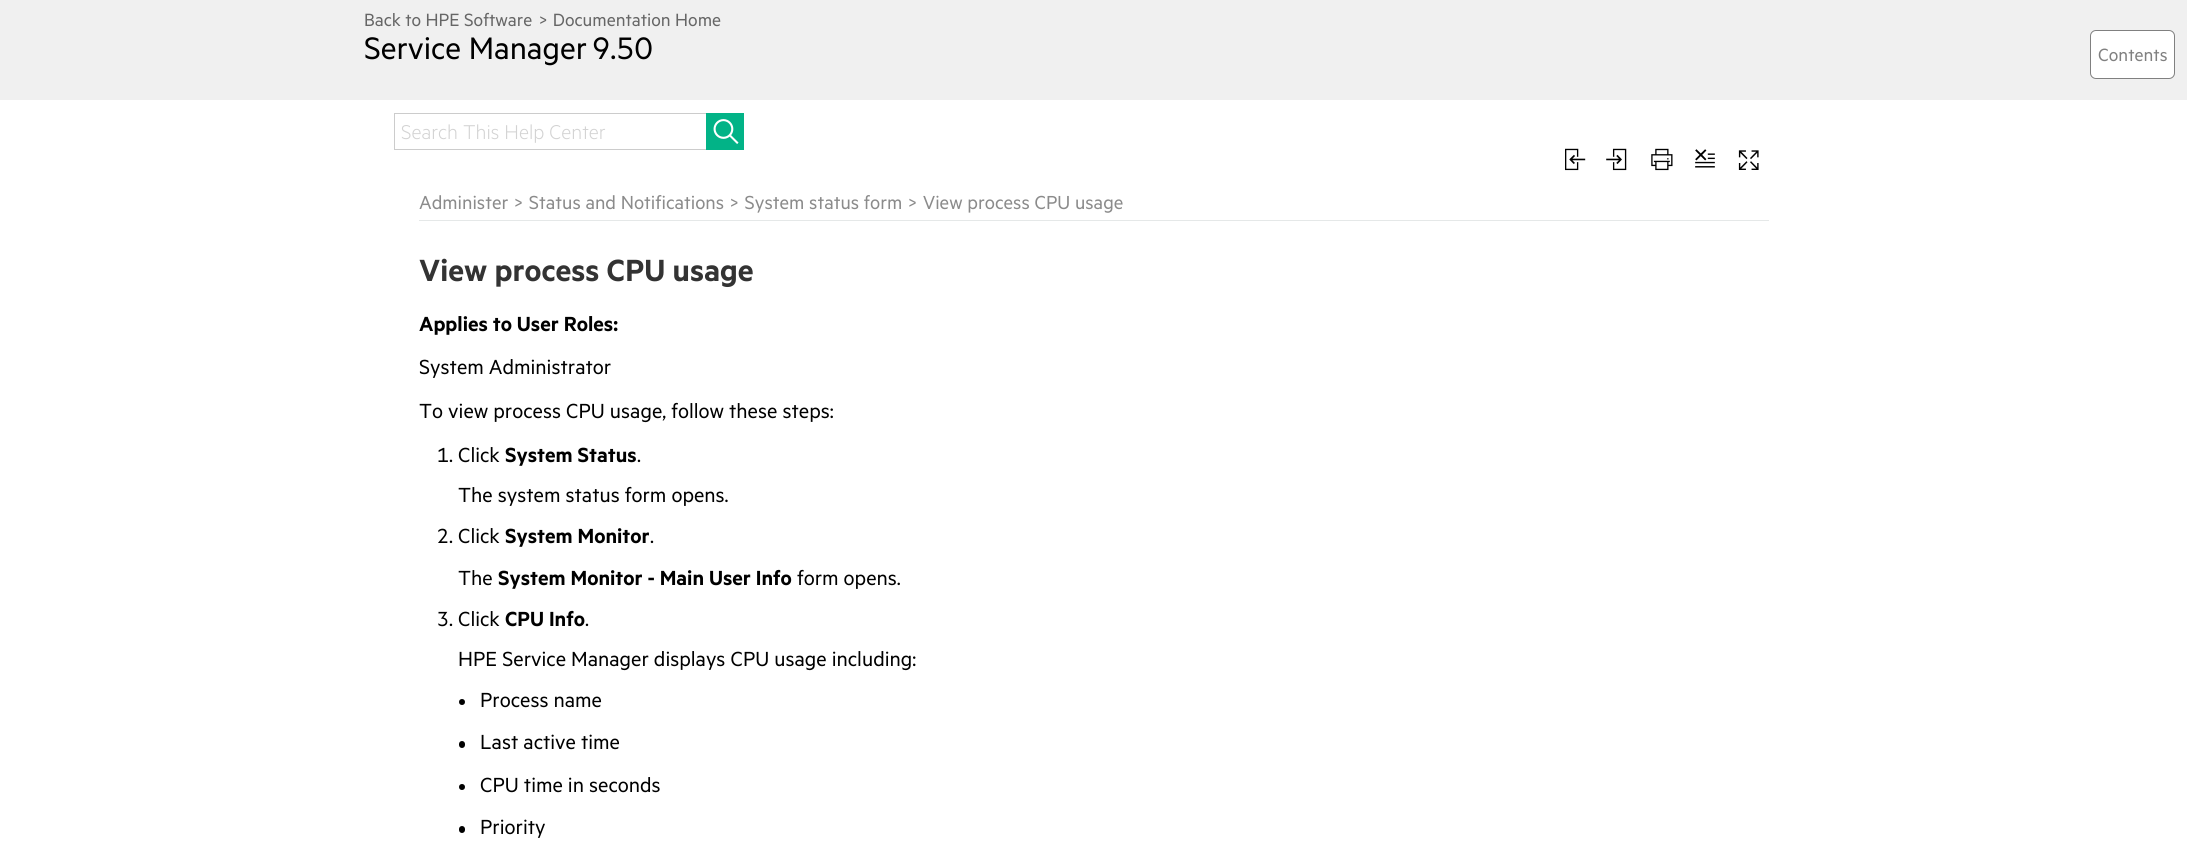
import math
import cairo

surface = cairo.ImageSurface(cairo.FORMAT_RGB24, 2187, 857)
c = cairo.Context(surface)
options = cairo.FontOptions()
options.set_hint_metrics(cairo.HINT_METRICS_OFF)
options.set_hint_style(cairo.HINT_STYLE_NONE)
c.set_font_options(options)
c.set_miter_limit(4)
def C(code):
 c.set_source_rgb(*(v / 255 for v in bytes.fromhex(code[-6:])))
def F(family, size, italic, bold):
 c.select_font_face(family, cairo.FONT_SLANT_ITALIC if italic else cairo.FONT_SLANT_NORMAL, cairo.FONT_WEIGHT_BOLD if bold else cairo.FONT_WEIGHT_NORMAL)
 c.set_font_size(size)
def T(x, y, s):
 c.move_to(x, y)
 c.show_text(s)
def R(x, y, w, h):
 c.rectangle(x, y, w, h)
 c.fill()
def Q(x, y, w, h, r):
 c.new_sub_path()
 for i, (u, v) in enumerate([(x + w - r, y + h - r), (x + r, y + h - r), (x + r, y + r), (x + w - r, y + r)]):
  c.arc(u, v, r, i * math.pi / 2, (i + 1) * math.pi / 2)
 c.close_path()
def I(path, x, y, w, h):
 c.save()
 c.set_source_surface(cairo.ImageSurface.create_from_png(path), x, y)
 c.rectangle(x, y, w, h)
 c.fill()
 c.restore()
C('ffffff')
c.paint()
C('f0f0f0')
R(0,0,2187,100)
F('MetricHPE',20,0,0)
C('666666')
T(364,26,'Back to HPE Software')
T(538,26,'> Documentation Home')
F('MetricHPE',35,0,0)
C('000000')
T(364,59,'Service Manager')
T(592,59,'9.50')
C('ffffff')
Q(2090.5,30.5,84,48,5.5)
c.fill_preserve()
C('808080')
c.set_line_width(1)
c.stroke()
F('MetricHPE',20,0,0)
T(2098,61,'Contents')
C('cccccc')
R(394,113,312,1)
R(394,149,312,1)
R(394,113,1,37)
F('MetricHPE Light',22.5,0,0)
C('d3d3d3')
T(401,139,'Search This Help Center')
C('02b387')
R(706,113,38,37)
I('1.png',713,119,26,25)
I('2.png',1565,148,21,23)
I('3.png',1606,148,21,23)
I('4.png',1651,148,22,23)
I('5.png',1695,149,20,19)
I('6.png',1738,150,21,20)
C('e5e8e8')
R(419,220,1350,1)
F('MetricHPE',21.25,0,0)
C('8b8b8b')
T(419,209,'Administer > Status and Notifications > System status form > View process CPU usage')
F('MetricHPE SemiBold',34.5,0,0)
C('333333')
T(419,281,'View process CPU usage')
F('MetricHPE SemiBold',23,0,0)
C('000000')
T(419,331,'Applies to User Roles:')
F('MetricHPE',23,0,0)
T(419,374,'System Administrator')
T(419,418,'To view process CPU usage, follow these steps:')
T(437,462,'1. Click')
F('MetricHPE SemiBold',23,0,0)
T(505,462,'System Status')
F('MetricHPE',23,0,0)
T(637,462,'.')
T(458,502,'The system status form opens.')
T(437,543,'2. Click')
F('MetricHPE SemiBold',23,0,0)
T(505,543,'System Monitor')
F('MetricHPE',23,0,0)
T(650,543,'.')
T(458,585,'The')
F('MetricHPE SemiBold',23,0,0)
T(498,585,'System Monitor - Main User Info')
F('MetricHPE',23,0,0)
T(797,585,'form opens.')
T(437,626,'3. Click')
F('MetricHPE SemiBold',23,0,0)
T(505,626,'CPU Info')
F('MetricHPE',23,0,0)
T(585,626,'.')
T(458,666,'HPE Service Manager displays CPU usage including:')
c.new_path()
c.arc(462,702,3,0,2 * math.pi)
c.fill()
T(480,707,'Process name')
Q(459,741,6,7,3)
c.fill()
T(480,749,'Last active time')
c.new_path()
c.arc(462,787,3,0,2 * math.pi)
c.fill()
T(480,792,'CPU time in seconds')
Q(459,826,6,7,3)
c.fill()
T(480,834,'Priority')
surface.write_to_png('o.png')
